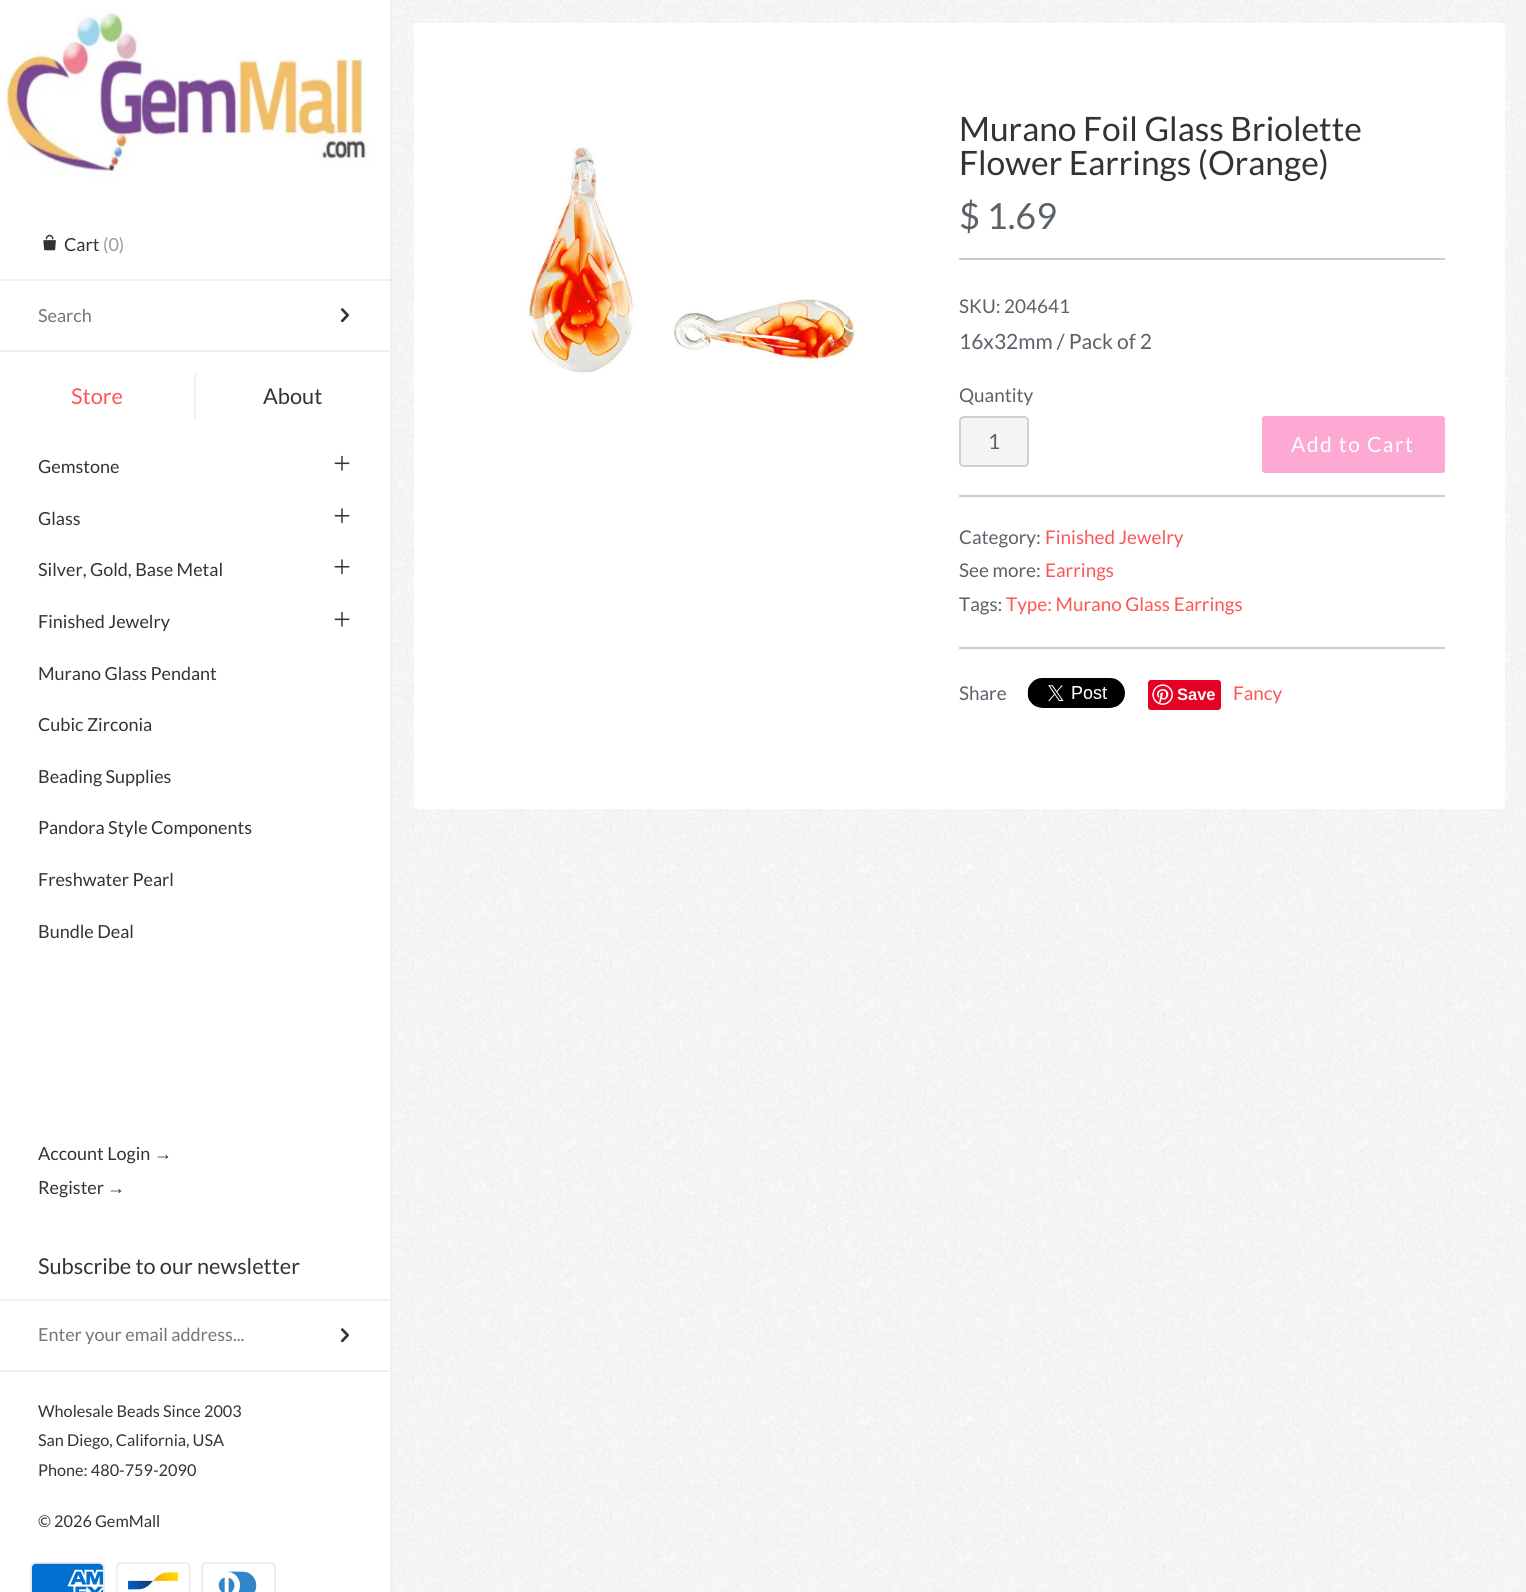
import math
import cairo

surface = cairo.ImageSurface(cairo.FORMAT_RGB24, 1526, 1592)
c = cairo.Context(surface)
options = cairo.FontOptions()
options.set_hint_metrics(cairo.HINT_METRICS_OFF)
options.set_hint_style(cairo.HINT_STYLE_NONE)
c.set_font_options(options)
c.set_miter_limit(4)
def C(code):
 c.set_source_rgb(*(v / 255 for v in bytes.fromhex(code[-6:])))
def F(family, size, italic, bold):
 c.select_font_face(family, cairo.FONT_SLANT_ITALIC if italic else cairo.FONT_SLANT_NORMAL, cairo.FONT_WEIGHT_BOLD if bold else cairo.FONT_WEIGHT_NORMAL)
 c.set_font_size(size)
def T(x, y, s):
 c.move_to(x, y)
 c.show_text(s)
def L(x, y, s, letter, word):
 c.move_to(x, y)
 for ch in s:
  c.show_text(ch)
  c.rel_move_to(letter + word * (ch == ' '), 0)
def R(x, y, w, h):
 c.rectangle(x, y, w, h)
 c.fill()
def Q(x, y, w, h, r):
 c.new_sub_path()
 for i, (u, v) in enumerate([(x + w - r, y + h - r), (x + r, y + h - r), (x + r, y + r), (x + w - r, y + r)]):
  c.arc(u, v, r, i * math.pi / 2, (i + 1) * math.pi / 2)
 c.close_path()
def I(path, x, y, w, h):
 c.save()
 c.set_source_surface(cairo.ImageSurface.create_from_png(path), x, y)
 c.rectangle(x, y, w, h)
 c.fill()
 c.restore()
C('f5f5f5')
c.paint()
I('1.png',392,0,1132,1591)
C('ffffff')
R(0,210,390,1382)
C('f0f0f0')
R(390,0,2,1592)
I('2.png',0,0,390,210)
I('3.png',43,234,13,17)
F('Lato',18,0,0)
C('333333')
T(64,251,'Cart')
C('999999')
T(103,251,'(0)')
C('f0f0f0')
R(0,279,390,2)
R(0,350,390,2)
C('757575')
T(38,322,'Search')
I('4.png',340,308,10,15)
C('f0f0f0')
R(194,374,2,45)
F('Lato',21.75,0,0)
C('ff5555')
T(71,404,'Store')
F('Lato',18,0,0)
C('333333')
T(38,473,'Gemstone')
I('5.png',334,455,16,16)
T(38,525,'Glass')
I('6.png',334,508,16,16)
T(38,576,'Silver, Gold, Base Metal')
I('6.png',334,559,16,16)
T(38,628,'Finished Jewelry')
I('5.png',334,611,16,16)
T(38,680,'Murano Glass Pendant')
T(38,731,'Cubic Zirconia')
T(38,783,'Beading Supplies')
T(38,834,'Pandora Style Components')
T(38,886,'Freshwater Pearl')
T(38,938,'Bundle Deal')
F('Lato',21.75,0,0)
T(263,404,'About')
F('Lato',18,0,0)
T(38,1160,'Account Login')
F('Liberation Serif',18,0,0)
T(154,1160,'→')
F('Lato',18,0,0)
T(38,1194,'Register')
F('Liberation Serif',18,0,0)
T(107,1194,'→')
F('Lato',21.75,0,0)
T(38,1274,'Subscribe to our newsletter')
C('f0f0f0')
R(0,1299,390,2)
R(0,1370,390,2)
F('Lato',18,0,0)
C('757575')
T(38,1341,'Enter your email address...')
I('4.png',340,1328,10,15)
F('Lato',16.25,0,0)
C('333333')
T(38,1417,'Wholesale Beads Since 2003')
T(38,1446,'San Diego, California, USA')
T(38,1476,'Phone: 480-759-2090')
T(38,1527,'© 2026 GemMall')
I('7.png',30,1562,75,30)
I('8.png',116,1562,75,30)
I('9.png',201,1562,75,30)
C('ffffff')
R(414,23,1091,786)
I('10.png',526,147,332,227)
F('Lato',33.6,0,0)
C('333333')
T(959,141,'Murano Foil Glass Briolette')
T(959,175,'Flower Earrings (Orange)')
F('Lato',36,0,0)
C('5b6169')
T(959,229,'$ 1.69')
C('cccccc')
R(959,258,486,2)
F('Lato',18.9,0,0)
C('5b6169')
T(959,313,'SKU: 204641')
F('Lato',21,0,0)
T(959,349,'16x32mm / Pack of 2')
F('Lato',18.9,0,0)
T(959,402,'Quantity')
C('f5f5f5')
Q(960,417,68,49,4)
c.fill_preserve()
C('ced0d2')
c.stroke()
F('Lato',21,0,0)
C('5b6169')
T(988,449,'1')
C('fea8d4')
Q(1262,416,183,57,3)
c.fill()
C('ffffff')
L(1291,452,'Add to Cart',1.5,0)
C('cccccc')
R(959,495,486,2)
F('Lato',18.9,0,0)
C('5b6169')
T(959,544,'Category:')
C('ff5555')
T(1045,544,'Finished Jewelry')
C('5b6169')
T(959,577,'See more:')
C('ff5555')
T(1045,577,'Earrings')
C('5b6169')
T(959,611,'Tags:')
C('ff5555')
T(1006,611,'Type: Murano Glass Earrings')
C('cccccc')
R(959,647,486,2)
C('5b6169')
T(959,700,'Share')
I('11.png',1027,678,98,30)
C('e60023')
Q(1148,680,73,30,3)
c.fill()
I('12.png',1152,684,21,21)
F('Liberation Sans',16.5,0,1)
C('ffffff')
T(1177,700,'Save')
F('Lato',18.9,0,0)
C('ff5555')
T(1233,700,'Fancy')
surface.write_to_png('o.png')
